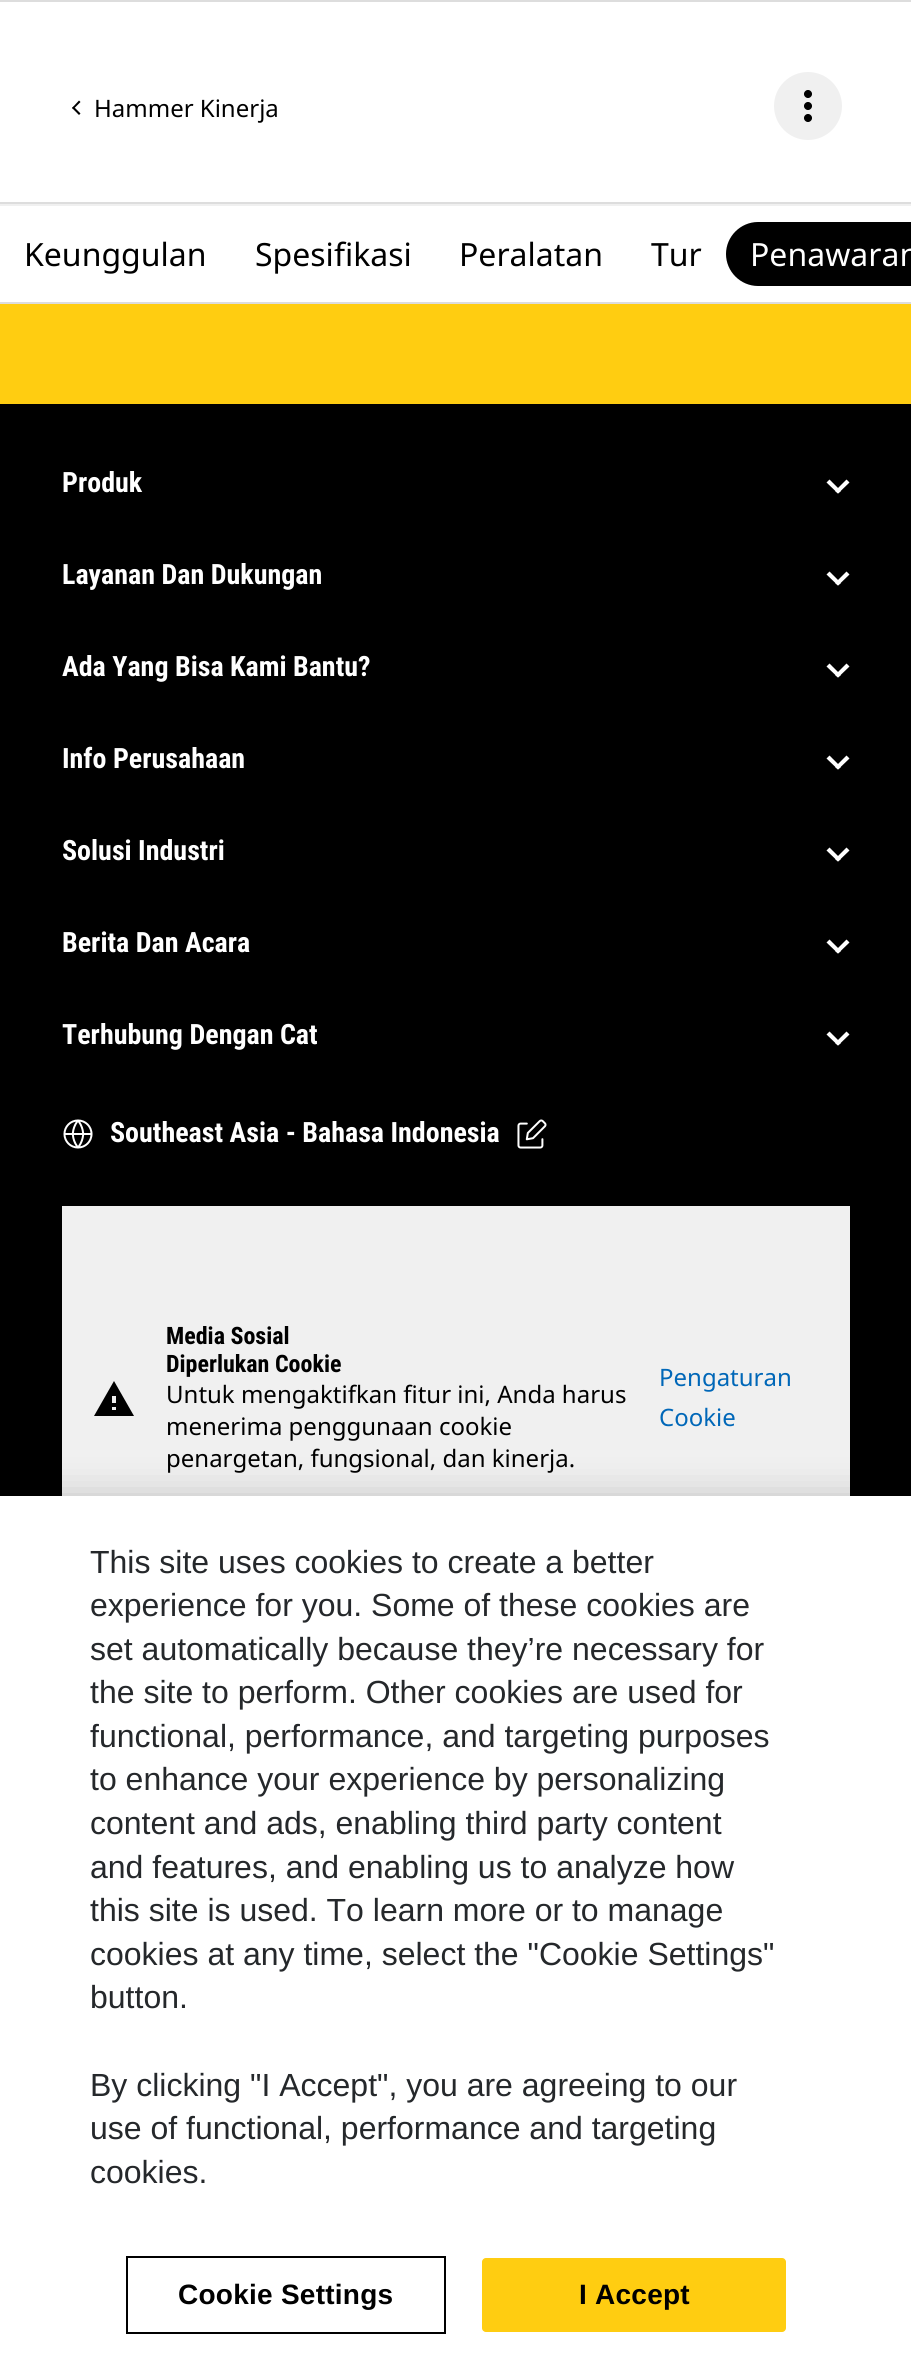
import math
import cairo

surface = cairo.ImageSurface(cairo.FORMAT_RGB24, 911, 2374)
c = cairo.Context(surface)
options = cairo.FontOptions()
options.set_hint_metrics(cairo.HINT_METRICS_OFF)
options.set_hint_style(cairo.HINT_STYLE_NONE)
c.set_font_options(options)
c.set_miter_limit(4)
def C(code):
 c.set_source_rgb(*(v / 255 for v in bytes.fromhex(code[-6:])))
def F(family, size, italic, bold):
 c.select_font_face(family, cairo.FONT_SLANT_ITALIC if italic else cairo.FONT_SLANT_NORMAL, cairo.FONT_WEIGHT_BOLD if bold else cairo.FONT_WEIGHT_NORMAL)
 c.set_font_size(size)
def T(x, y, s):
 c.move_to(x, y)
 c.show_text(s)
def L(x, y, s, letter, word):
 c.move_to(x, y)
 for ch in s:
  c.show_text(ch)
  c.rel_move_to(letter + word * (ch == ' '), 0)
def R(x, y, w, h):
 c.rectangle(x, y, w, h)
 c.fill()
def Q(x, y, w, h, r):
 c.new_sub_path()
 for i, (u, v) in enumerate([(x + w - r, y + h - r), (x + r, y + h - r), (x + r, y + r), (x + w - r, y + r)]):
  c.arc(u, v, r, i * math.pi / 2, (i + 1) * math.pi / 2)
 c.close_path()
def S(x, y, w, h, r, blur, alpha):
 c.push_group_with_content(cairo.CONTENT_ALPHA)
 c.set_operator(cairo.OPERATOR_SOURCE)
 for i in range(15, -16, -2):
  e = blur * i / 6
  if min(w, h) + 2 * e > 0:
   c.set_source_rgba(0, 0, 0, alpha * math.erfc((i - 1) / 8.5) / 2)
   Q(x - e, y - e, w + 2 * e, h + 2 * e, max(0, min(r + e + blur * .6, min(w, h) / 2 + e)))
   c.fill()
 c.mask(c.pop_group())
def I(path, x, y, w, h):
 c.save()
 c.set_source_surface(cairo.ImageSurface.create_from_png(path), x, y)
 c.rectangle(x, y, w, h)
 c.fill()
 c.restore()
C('ffcd11')
c.paint()
C('ffffff')
R(0,2,911,200)
C('dddddd')
R(0,0,911,2)
R(0,202,911,2)
C('000000')
c.new_path()
c.move_to(80.5,113.5)
c.line_to(79,115)
c.line_to(72,108)
c.line_to(73.5,106.5)
c.close_path()
c.fill()
c.new_path()
c.move_to(80.5,102)
c.line_to(73.5,109)
c.line_to(72,108)
c.line_to(79,100.5)
c.close_path()
c.fill()
F('Noto Sans',24,0,0)
T(94,117,'Hammer Kinerja')
C('f0f0f0')
c.new_path()
c.arc(808,106,34,0,2 * math.pi)
c.fill()
I('1.png',804,90,8,32)
C('ffffff')
R(0,206,911,96)
C('f0f0f0')
R(0,204,911,2)
C('dddddd')
R(0,302,911,2)
F('Noto Sans',32,0,0)
C('000000')
T(24,266,'Keunggulan')
T(255,266,'Spesifikasi')
T(459,266,'Peralatan')
T(651,266,'Tur')
c.new_path()
c.move_to(758,222)
c.line_to(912,222)
c.line_to(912,286)
c.line_to(758,286)
c.curve_to(740.5,286,726,271.5,726,254)
c.curve_to(726,236.5,740.5,222,758,222)
c.close_path()
c.fill()
C('ffffff')
T(750,266,'Penawaran')
C('000000')
R(0,404,911,1092)
F('Roboto Condensed',28,0,1)
C('ffffff')
T(62,492,'Produk')
c.new_path()
c.move_to(846.5,479.5)
c.line_to(849.5,482.5)
c.line_to(838,493.5)
c.line_to(835,491)
c.close_path()
c.fill()
c.new_path()
c.move_to(829.5,479.5)
c.line_to(841,491)
c.line_to(838,493.5)
c.line_to(826.5,482.5)
c.close_path()
c.fill()
T(62,584,'Layanan Dan Dukungan')
c.new_path()
c.move_to(846.5,571.5)
c.line_to(849.5,574.5)
c.line_to(838,585.5)
c.line_to(835,583)
c.close_path()
c.fill()
c.new_path()
c.move_to(829.5,571.5)
c.line_to(841,583)
c.line_to(838,585.5)
c.line_to(826.5,574.5)
c.close_path()
c.fill()
T(62,676,'Ada Yang Bisa Kami Bantu?')
c.new_path()
c.move_to(846.5,663.5)
c.line_to(849.5,666.5)
c.line_to(838,677.5)
c.line_to(835,675)
c.close_path()
c.fill()
c.new_path()
c.move_to(829.5,663.5)
c.line_to(841,675)
c.line_to(838,677.5)
c.line_to(826.5,666.5)
c.close_path()
c.fill()
T(62,768,'Info Perusahaan')
c.new_path()
c.move_to(846.5,755.5)
c.line_to(849.5,758.5)
c.line_to(838,769.5)
c.line_to(835,767)
c.close_path()
c.fill()
c.new_path()
c.move_to(829.5,755.5)
c.line_to(841,767)
c.line_to(838,769.5)
c.line_to(826.5,758.5)
c.close_path()
c.fill()
T(62,860,'Solusi Industri')
c.new_path()
c.move_to(846.5,847.5)
c.line_to(849.5,850.5)
c.line_to(838,861.5)
c.line_to(835,859)
c.close_path()
c.fill()
c.new_path()
c.move_to(829.5,847.5)
c.line_to(841,859)
c.line_to(838,861.5)
c.line_to(826.5,850.5)
c.close_path()
c.fill()
T(62,952,'Berita Dan Acara')
c.new_path()
c.move_to(846.5,939.5)
c.line_to(849.5,942.5)
c.line_to(838,953.5)
c.line_to(835,951)
c.close_path()
c.fill()
c.new_path()
c.move_to(829.5,939.5)
c.line_to(841,951)
c.line_to(838,953.5)
c.line_to(826.5,942.5)
c.close_path()
c.fill()
T(62,1044,'Terhubung Dengan Cat')
c.new_path()
c.move_to(846.5,1031.5)
c.line_to(849.5,1034.5)
c.line_to(838,1045.5)
c.line_to(835,1043)
c.close_path()
c.fill()
c.new_path()
c.move_to(829.5,1031.5)
c.line_to(841,1043)
c.line_to(838,1045.5)
c.line_to(826.5,1034.5)
c.close_path()
c.fill()
I('2.png',63,1119,30,30)
T(110,1142,'Southeast Asia - Bahasa Indonesia')
I('3.png',517,1119,30,30)
C('f0f0f0')
R(62,1206,788,290)
C('000000')
c.new_path()
c.move_to(116,1403)
c.line_to(116,1396)
c.line_to(112,1396)
c.line_to(112,1403)
c.close_path()
c.move_to(116,1410)
c.line_to(116,1407)
c.line_to(112,1407)
c.line_to(112,1410)
c.close_path()
c.move_to(94,1416)
c.line_to(114,1381)
c.line_to(134,1416)
c.close_path()
c.fill()
F('Roboto Condensed',24,0,1)
T(166,1344,'Media Sosial')
T(166,1372,'Diperlukan Cookie')
F('Noto Sans',24,0,0)
T(166,1403,'Untuk mengaktifkan fitur ini, Anda harus')
T(166,1435,'menerima penggunaan cookie')
T(166,1467,'penargetan, fungsional, dan kinerja.')
C('0067b8')
T(659,1386,'Pengaturan')
T(659,1426,'Cookie')
C('000000')
S(0,1496,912,878,0,18,.2)
C('ffffff')
R(0,1496,911,878)
F('Liberation Sans',32,0,0)
C('25282b')
T(90,1573,'This site uses cookies to create a better')
T(90,1616,'experience for you. Some of these cookies are')
T(90,1660,'set automatically because they’re necessary for')
T(90,1703,'the site to perform. Other cookies are used for')
T(90,1747,'functional, performance, and targeting purposes')
T(90,1790,'to enhance your experience by personalizing')
T(90,1834,'content and ads, enabling third party content')
T(90,1878,'and features, and enabling us to analyze how')
T(90,1921,'this site is used. To learn more or to manage')
T(90,1965,'cookies at any time, select the "Cookie Settings"')
T(90,2008,'button.')
T(90,2096,'By clicking "I Accept", you are agreeing to our')
T(90,2139,'use of functional, performance and targeting')
T(90,2183,'cookies.')
c.rectangle(127,2257,318,76)
C('000000')
c.stroke()
F('Liberation Sans',28,0,1)
L(178,2304,'Cookie Settings',.25,0)
C('ffcd11')
Q(482,2258,304,74,4)
c.fill()
C('000000')
L(579,2304,'I Accept',.25,0)
surface.write_to_png('o.png')
